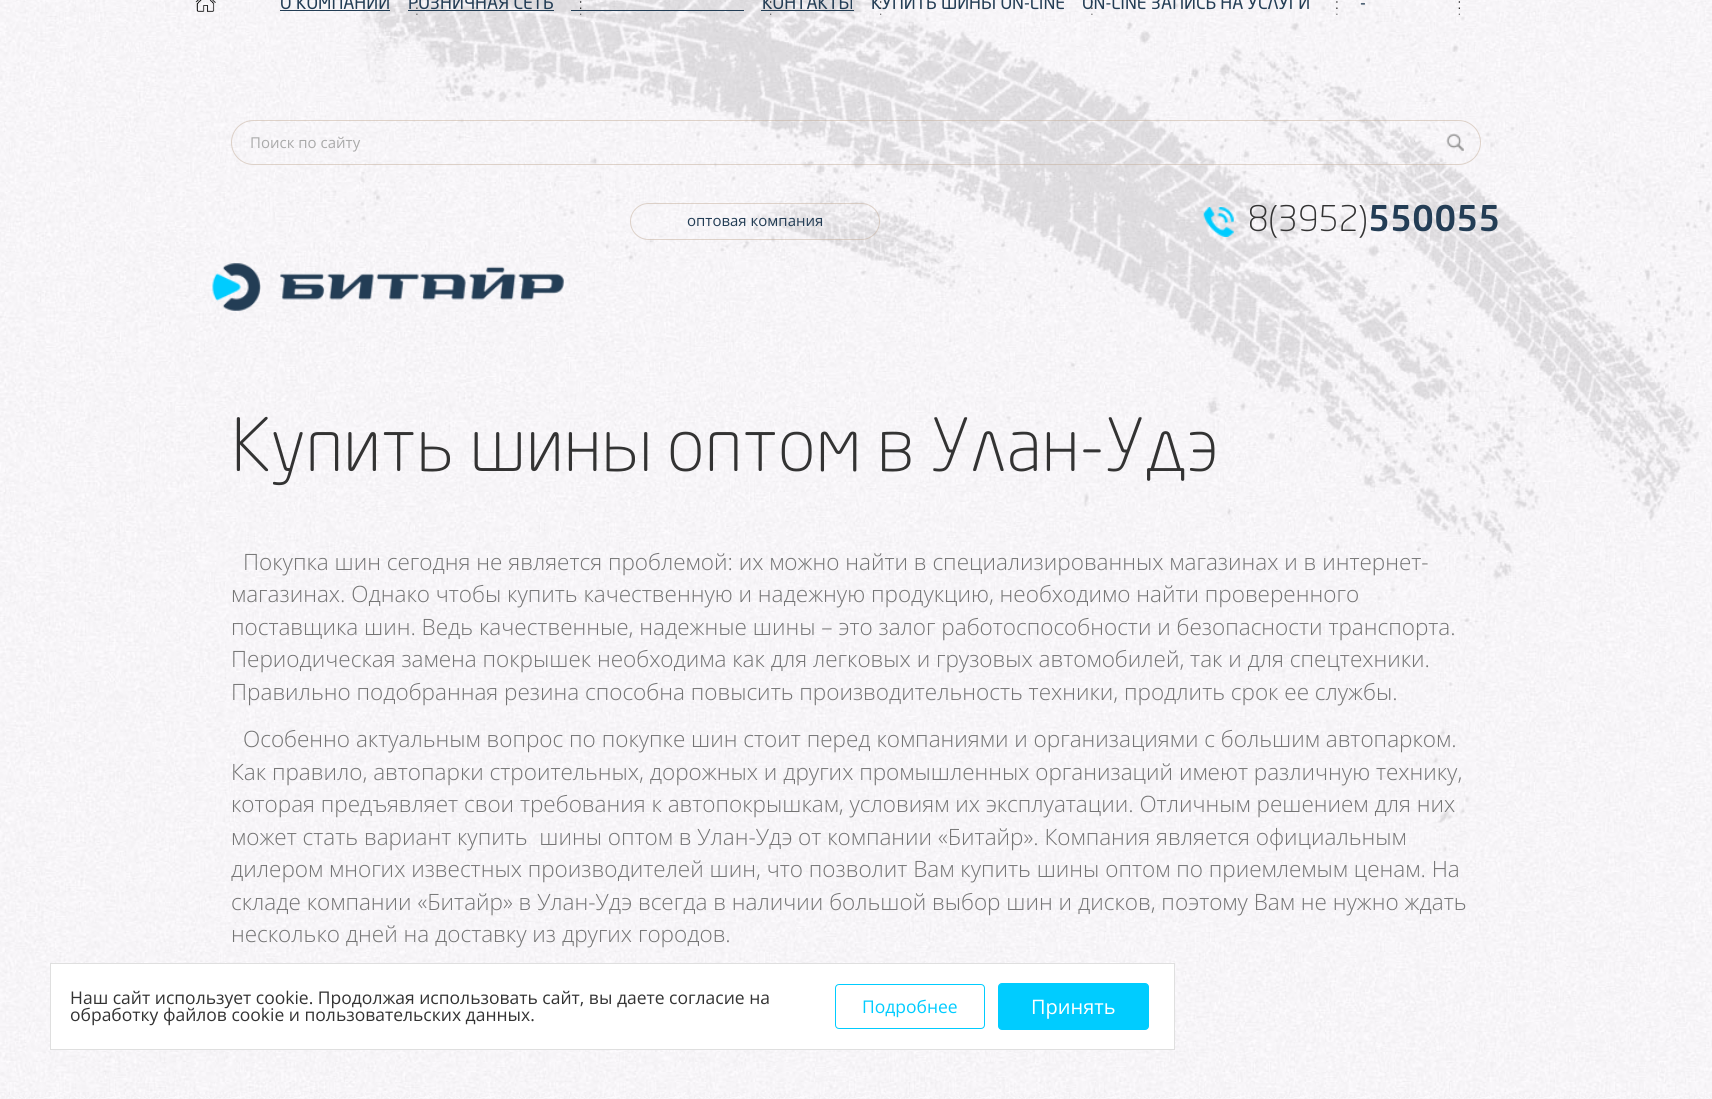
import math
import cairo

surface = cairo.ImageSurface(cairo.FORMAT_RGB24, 1712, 1099)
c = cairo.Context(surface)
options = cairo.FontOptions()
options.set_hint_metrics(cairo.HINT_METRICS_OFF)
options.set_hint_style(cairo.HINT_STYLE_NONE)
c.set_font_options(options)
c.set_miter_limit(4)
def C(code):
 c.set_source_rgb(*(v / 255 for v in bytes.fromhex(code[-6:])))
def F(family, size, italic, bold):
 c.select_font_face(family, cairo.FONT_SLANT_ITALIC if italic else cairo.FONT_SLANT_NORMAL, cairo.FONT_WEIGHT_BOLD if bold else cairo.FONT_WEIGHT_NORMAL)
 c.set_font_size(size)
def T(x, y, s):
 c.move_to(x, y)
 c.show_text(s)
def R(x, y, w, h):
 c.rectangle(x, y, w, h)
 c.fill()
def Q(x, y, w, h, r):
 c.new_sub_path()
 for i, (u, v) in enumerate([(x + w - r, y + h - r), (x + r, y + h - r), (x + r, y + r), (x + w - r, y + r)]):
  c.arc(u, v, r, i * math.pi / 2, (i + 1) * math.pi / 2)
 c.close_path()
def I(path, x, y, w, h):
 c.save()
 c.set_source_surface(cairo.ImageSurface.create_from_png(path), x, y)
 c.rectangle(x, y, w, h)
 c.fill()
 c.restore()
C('ffffff')
c.paint()
I('1.png',0,0,1712,1099)
I('2.png',195,0,21,12)
F('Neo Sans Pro',17.5,0,0)
C('233d55')
T(280,9,'О КОМПАНИИ')
R(280,10,110,1)
I('3.png',416,1,2,14)
T(408,9,'РОЗНИЧНАЯ СЕТЬ')
R(408,10,146,1)
I('4.png',580,1,2,14)
R(571,10,173,1)
I('5.png',770,1,2,14)
T(762,9,'КОНТАКТЫ')
R(761,10,93,1)
I('6.png',880,1,2,14)
T(871,9,'КУПИТЬ ШИНЫ ON-LINE')
I('7.png',1091,1,2,14)
T(1082,9,'ON-LINE ЗАПИСЬ НА УСЛУГИ')
I('8.png',1336,1,2,14)
T(1360,9,'-')
I('9.png',1458,1,2,14)
Q(231.5,120.5,1249,44,22)
c.set_source_rgba(0.769,0.686,0.608,0.5)
c.set_line_width(1)
c.stroke()
F('Open Sans',15,0,0)
C('aaaaaa')
T(250,148,'Поиск по сайту')
I('10.png',1446,133,19,19)
Q(630.5,203.5,249,36,18)
c.set_source_rgba(0.769,0.686,0.608,0.5)
c.stroke()
C('233d55')
T(687,226,'оптовая компания')
I('11.png',1203,207,31,30)
F('Neo Sans Pro Light',35,0,0)
C('333333')
T(1248,231,'8(3952)')
F('Neo Sans Pro Medium',35,0,0)
C('233d55')
T(1368,231,'550055')
I('12.png',212,263,352,48)
F('Neo Sans Pro Light',72.5,0,0)
C('333333')
T(231,471,'Купить шины оптом в Улан-Удэ')
F('Open Sans Light',22.5,0,0)
C('747474')
T(243,570,'Покупка шин сегодня не является проблемой: их можно найти в специализированных магазинах и в интернет-')
T(231,602,'магазинах. Однако чтобы купить качественную и надежную продукцию, необходимо найти проверенного')
T(231,635,'поставщика шин. Ведь качественные, надежные шины – это залог работоспособности и безопасности транспорта.')
T(231,667,'Периодическая замена покрышек необходима как для легковых и грузовых автомобилей, так и для спецтехники.')
T(231,700,'Правильно подобранная резина способна повысить производительность техники, продлить срок ее службы.')
T(243,747,'Особенно актуальным вопрос по покупке шин стоит перед компаниями и организациями с большим автопарком.')
T(231,780,'Как правило, автопарки строительных, дорожных и других промышленных организаций имеют различную технику,')
T(231,812,'которая предъявляет свои требования к автопокрышкам, условиям их эксплуатации. Отличным решением для них')
T(231,845,'может стать вариант купить  шины оптом в Улан-Удэ от компании «Битайр». Компания является официальным')
T(231,877,'дилером многих известных производителей шин, что позволит Вам купить шины оптом по приемлемым ценам. На')
T(231,910,'складе компании «Битайр» в Улан-Удэ всегда в наличии большой выбор шин и дисков, поэтому Вам не нужно ждать')
T(231,942,'несколько дней на доставку из других городов.')
C('ffffff')
c.rectangle(50.5,963.5,1124,86)
c.fill_preserve()
C('dfdfdf')
c.stroke()
F('Open Sans',17.5,0,0)
C('333333')
T(70,1004,'Наш сайт использует cookie. Продолжая использовать сайт, вы даете согласие на')
T(70,1021,'обработку файлов cookie и пользовательских данных.')
Q(835.5,984.5,149,44,3.5)
C('00ccff')
c.stroke()
T(862,1013,'Подробнее')
Q(998.5,983.5,150,46,3.5)
c.fill_preserve()
c.stroke()
F('Open Sans',20,0,0)
C('ffffff')
T(1031,1014,'Принять')
surface.write_to_png('o.png')
